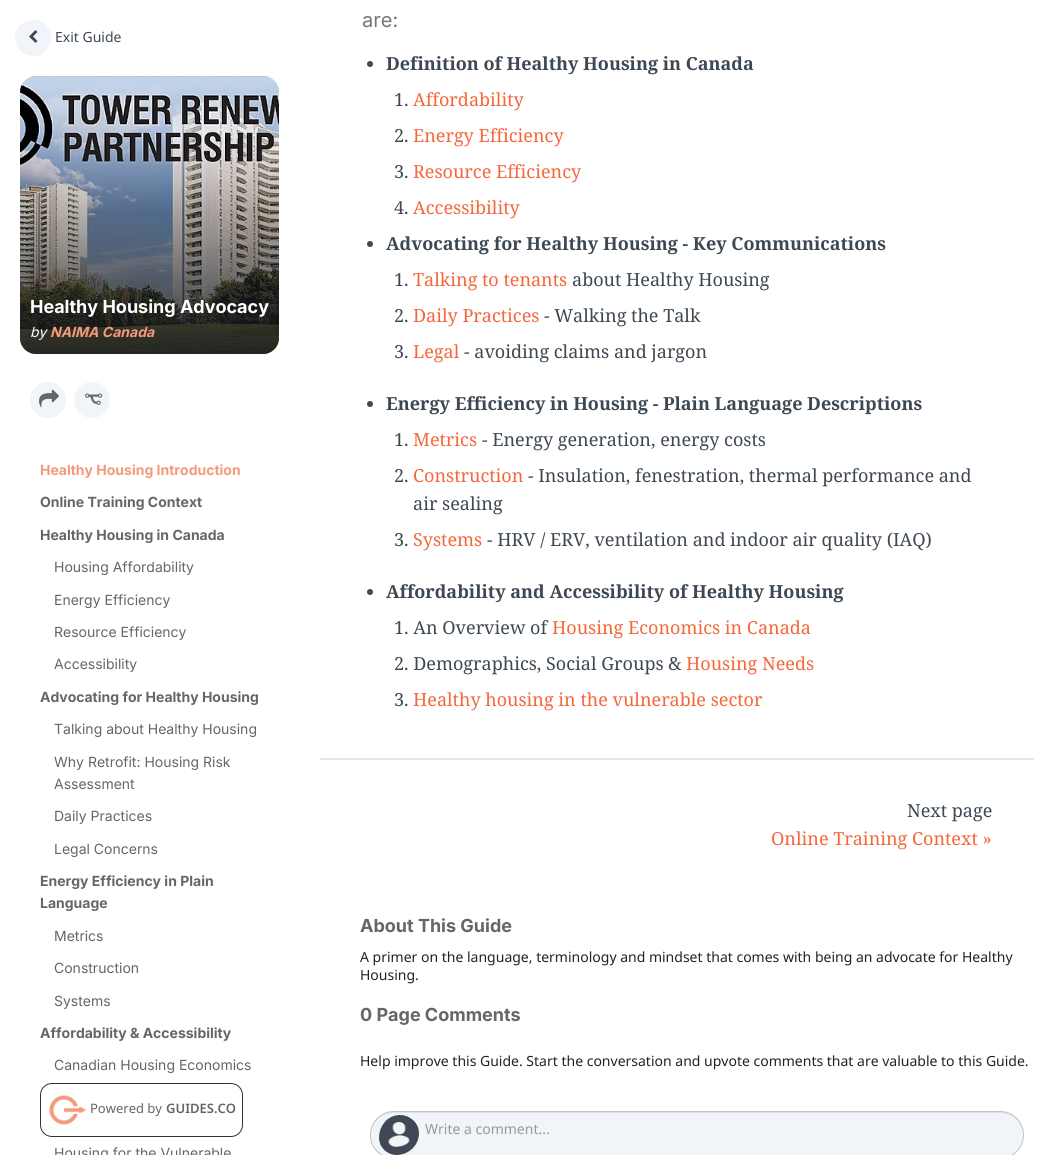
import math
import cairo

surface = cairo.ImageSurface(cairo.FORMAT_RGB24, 1054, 1155)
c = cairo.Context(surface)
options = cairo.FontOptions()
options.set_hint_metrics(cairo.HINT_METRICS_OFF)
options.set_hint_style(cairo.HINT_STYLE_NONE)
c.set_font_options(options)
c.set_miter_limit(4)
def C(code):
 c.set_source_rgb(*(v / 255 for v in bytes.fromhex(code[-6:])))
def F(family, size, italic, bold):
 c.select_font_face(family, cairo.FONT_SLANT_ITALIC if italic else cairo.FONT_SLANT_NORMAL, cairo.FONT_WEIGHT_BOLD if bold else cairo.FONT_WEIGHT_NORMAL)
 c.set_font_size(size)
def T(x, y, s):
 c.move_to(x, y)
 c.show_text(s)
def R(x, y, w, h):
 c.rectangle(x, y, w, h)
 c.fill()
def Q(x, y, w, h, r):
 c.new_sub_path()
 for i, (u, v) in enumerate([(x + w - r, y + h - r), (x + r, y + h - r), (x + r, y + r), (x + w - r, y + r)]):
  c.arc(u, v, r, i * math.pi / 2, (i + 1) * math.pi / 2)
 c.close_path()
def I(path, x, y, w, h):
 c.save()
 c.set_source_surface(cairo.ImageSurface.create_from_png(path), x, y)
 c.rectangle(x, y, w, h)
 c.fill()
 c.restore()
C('ffffff')
c.paint()
C('f1f4f8')
c.arc(33,38,18,0,2 * math.pi)
c.fill()
I('1.png',29,30,9,13)
F('Noto Sans',14,0,0)
C('3d4853')
T(55,42,'Exit Guide')
C('dddddd')
Q(20,76,259,278,16)
c.fill()
I('2.png',20,76,259,278)
gradient = cairo.LinearGradient(150,354,149,76)
gradient.add_color_stop_rgba(0,0.086,0.102,0.118,.9)
gradient.add_color_stop_rgba(.79,0.086,0.102,0.118,0)
c.set_source(gradient)
Q(20,76,259,278,16)
c.fill()
F('Inter',18,0,1)
C('ffffff')
T(30,313,'Healthy Housing Advocacy')
F('Inter',14,1,0)
T(30,337,'by')
F('Inter',14,1,1)
C('f49979')
T(50,337,'NAIMA Canada')
C('f1f4f8')
c.new_path()
c.arc(48,400,18,0,2 * math.pi)
c.fill()
I('3.png',39,389,20,19)
c.arc(92,400,18,0,2 * math.pi)
c.fill()
I('4.png',85,393,18,12)
F('Inter',14,0,1)
C('f49979')
T(40,475,'Healthy Housing Introduction')
C('666666')
T(40,507,'Online Training Context')
T(40,540,'Healthy Housing in Canada')
F('Inter',14,0,0)
T(54,572,'Housing Affordability')
T(54,605,'Energy Efficiency')
T(54,637,'Resource Efficiency')
T(54,669,'Accessibility')
F('Inter',14,0,1)
T(40,702,'Advocating for Healthy Housing')
F('Inter',14,0,0)
T(54,734,'Talking about Healthy Housing')
T(54,767,'Why Retrofit: Housing Risk')
T(54,789,'Assessment')
T(54,821,'Daily Practices')
T(54,854,'Legal Concerns')
F('Inter',14,0,1)
T(40,886,'Energy Efficiency in Plain')
T(40,908,'Language')
F('Inter',14,0,0)
T(54,941,'Metrics')
T(54,973,'Construction')
T(54,1006,'Systems')
F('Inter',14,0,1)
T(40,1038,'Affordability & Accessibility')
F('Inter',14,0,0)
T(54,1070,'Canadian Housing Economics')
T(54,1158,'Housing for the Vulnerable')
Q(40.5,1083.5,202,53,11.5)
C('333333')
c.set_line_width(1)
c.stroke()
I('5.png',49,1095,37,30)
F('Noto Sans',13,0,0)
C('666666')
T(90,1113,'Powered by')
F('Noto Sans SemiBold',13,0,0)
T(166,1113,'GUIDES.CO')
C('e0e7f2')
R(320,758,714,2)
F('Inter',20,0,0)
C('777777')
T(362,27,'are:')
C('3d4853')
c.new_path()
c.arc(370,64,3,0,2 * math.pi)
c.fill()
F('Noto Serif',18,0,1)
T(386,70,'Definition of Healthy Housing in Canada')
F('Noto Serif',18,0,0)
T(394,106,'1.')
C('f5673a')
T(413,106,'Affordability')
C('3d4853')
T(394,142,'2.')
C('f5673a')
T(413,142,'Energy Efficiency')
C('3d4853')
T(394,178,'3.')
C('f5673a')
T(413,178,'Resource Efficiency')
C('3d4853')
T(394,214,'4.')
C('f5673a')
T(413,214,'Accessibility')
C('3d4853')
c.new_path()
c.arc(370,244,3,0,2 * math.pi)
c.fill()
F('Noto Serif',18,0,1)
T(386,250,'Advocating for Healthy Housing - Key Communications')
F('Noto Serif',18,0,0)
T(394,286,'1.')
C('f5673a')
T(413,286,'Talking to tenants')
C('3d4853')
T(572,286,'about Healthy Housing')
T(394,322,'2.')
C('f5673a')
T(413,322,'Daily Practices')
C('3d4853')
T(544,322,'- Walking the Talk')
T(394,358,'3.')
C('f5673a')
T(413,358,'Legal')
C('3d4853')
T(464,358,'- avoiding claims and jargon')
c.new_path()
c.arc(370,404,3,0,2 * math.pi)
c.fill()
F('Noto Serif',18,0,1)
T(386,410,'Energy Efficiency in Housing - Plain Language Descriptions')
F('Noto Serif',18,0,0)
T(394,446,'1.')
C('f5673a')
T(413,446,'Metrics')
C('3d4853')
T(482,446,'- Energy generation, energy costs')
T(394,482,'2.')
C('f5673a')
T(413,482,'Construction')
C('3d4853')
T(528,482,'- Insulation, fenestration, thermal performance and')
T(413,510,'air sealing')
T(394,546,'3.')
C('f5673a')
T(413,546,'Systems')
C('3d4853')
T(487,546,'- HRV / ERV, ventilation and indoor air quality (IAQ)')
c.new_path()
c.arc(370,592,3,0,2 * math.pi)
c.fill()
F('Noto Serif',18,0,1)
T(386,598,'Affordability and Accessibility of Healthy Housing')
F('Noto Serif',18,0,0)
T(394,634,'1. An Overview of')
C('f5673a')
T(552,634,'Housing Economics in Canada')
C('3d4853')
T(394,670,'2. Demographics, Social Groups &')
C('f5673a')
T(686,670,'Housing Needs')
C('3d4853')
T(394,706,'3.')
C('f5673a')
T(413,706,'Healthy housing in the vulnerable sector')
C('3d4853')
T(907,817,'Next page')
C('f5673a')
T(771,845,'Online Training Context »')
F('Inter',18,0,1)
C('666666')
T(360,932,'About This Guide')
F('Noto Sans',14,0,0)
C('222222')
T(360,962,'A primer on the language, terminology and mindset that comes with being an advocate for Healthy')
T(360,980,'Housing.')
F('Inter',18,0,1)
C('666666')
T(360,1021,'0 Page Comments')
F('Noto Sans',14,0,0)
C('222222')
T(360,1066,'Help improve this Guide. Start the conversation and upvote comments that are valuable to this Guide.')
C('f1f4f8')
Q(370,1111,654,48,24)
c.fill()
C('dfe2e5')
c.new_path()
c.move_to(394,1113)
c.line_to(1000,1113)
c.curve_to(1013,1113,1023,1123,1023,1135)
c.curve_to(1023,1122,1013,1112,1000,1112)
c.line_to(394,1112)
c.curve_to(381,1112,371,1122,371,1135)
c.curve_to(371,1123,381,1113,394,1113)
c.close_path()
c.fill()
Q(370.5,1111.5,653,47,23.5)
C('c4c4c4')
c.stroke()
C('ffffff')
c.new_path()
c.move_to(399,1115)
c.curve_to(427,1115,424,1155,397,1155)
c.curve_to(393,1155,390,1154,387,1152)
c.curve_to(371,1142,381,1115,399,1115)
c.close_path()
c.fill()
I('6.png',379,1115,40,40)
C('999999')
T(425,1134,'Write a comment...')
surface.write_to_png('o.png')
